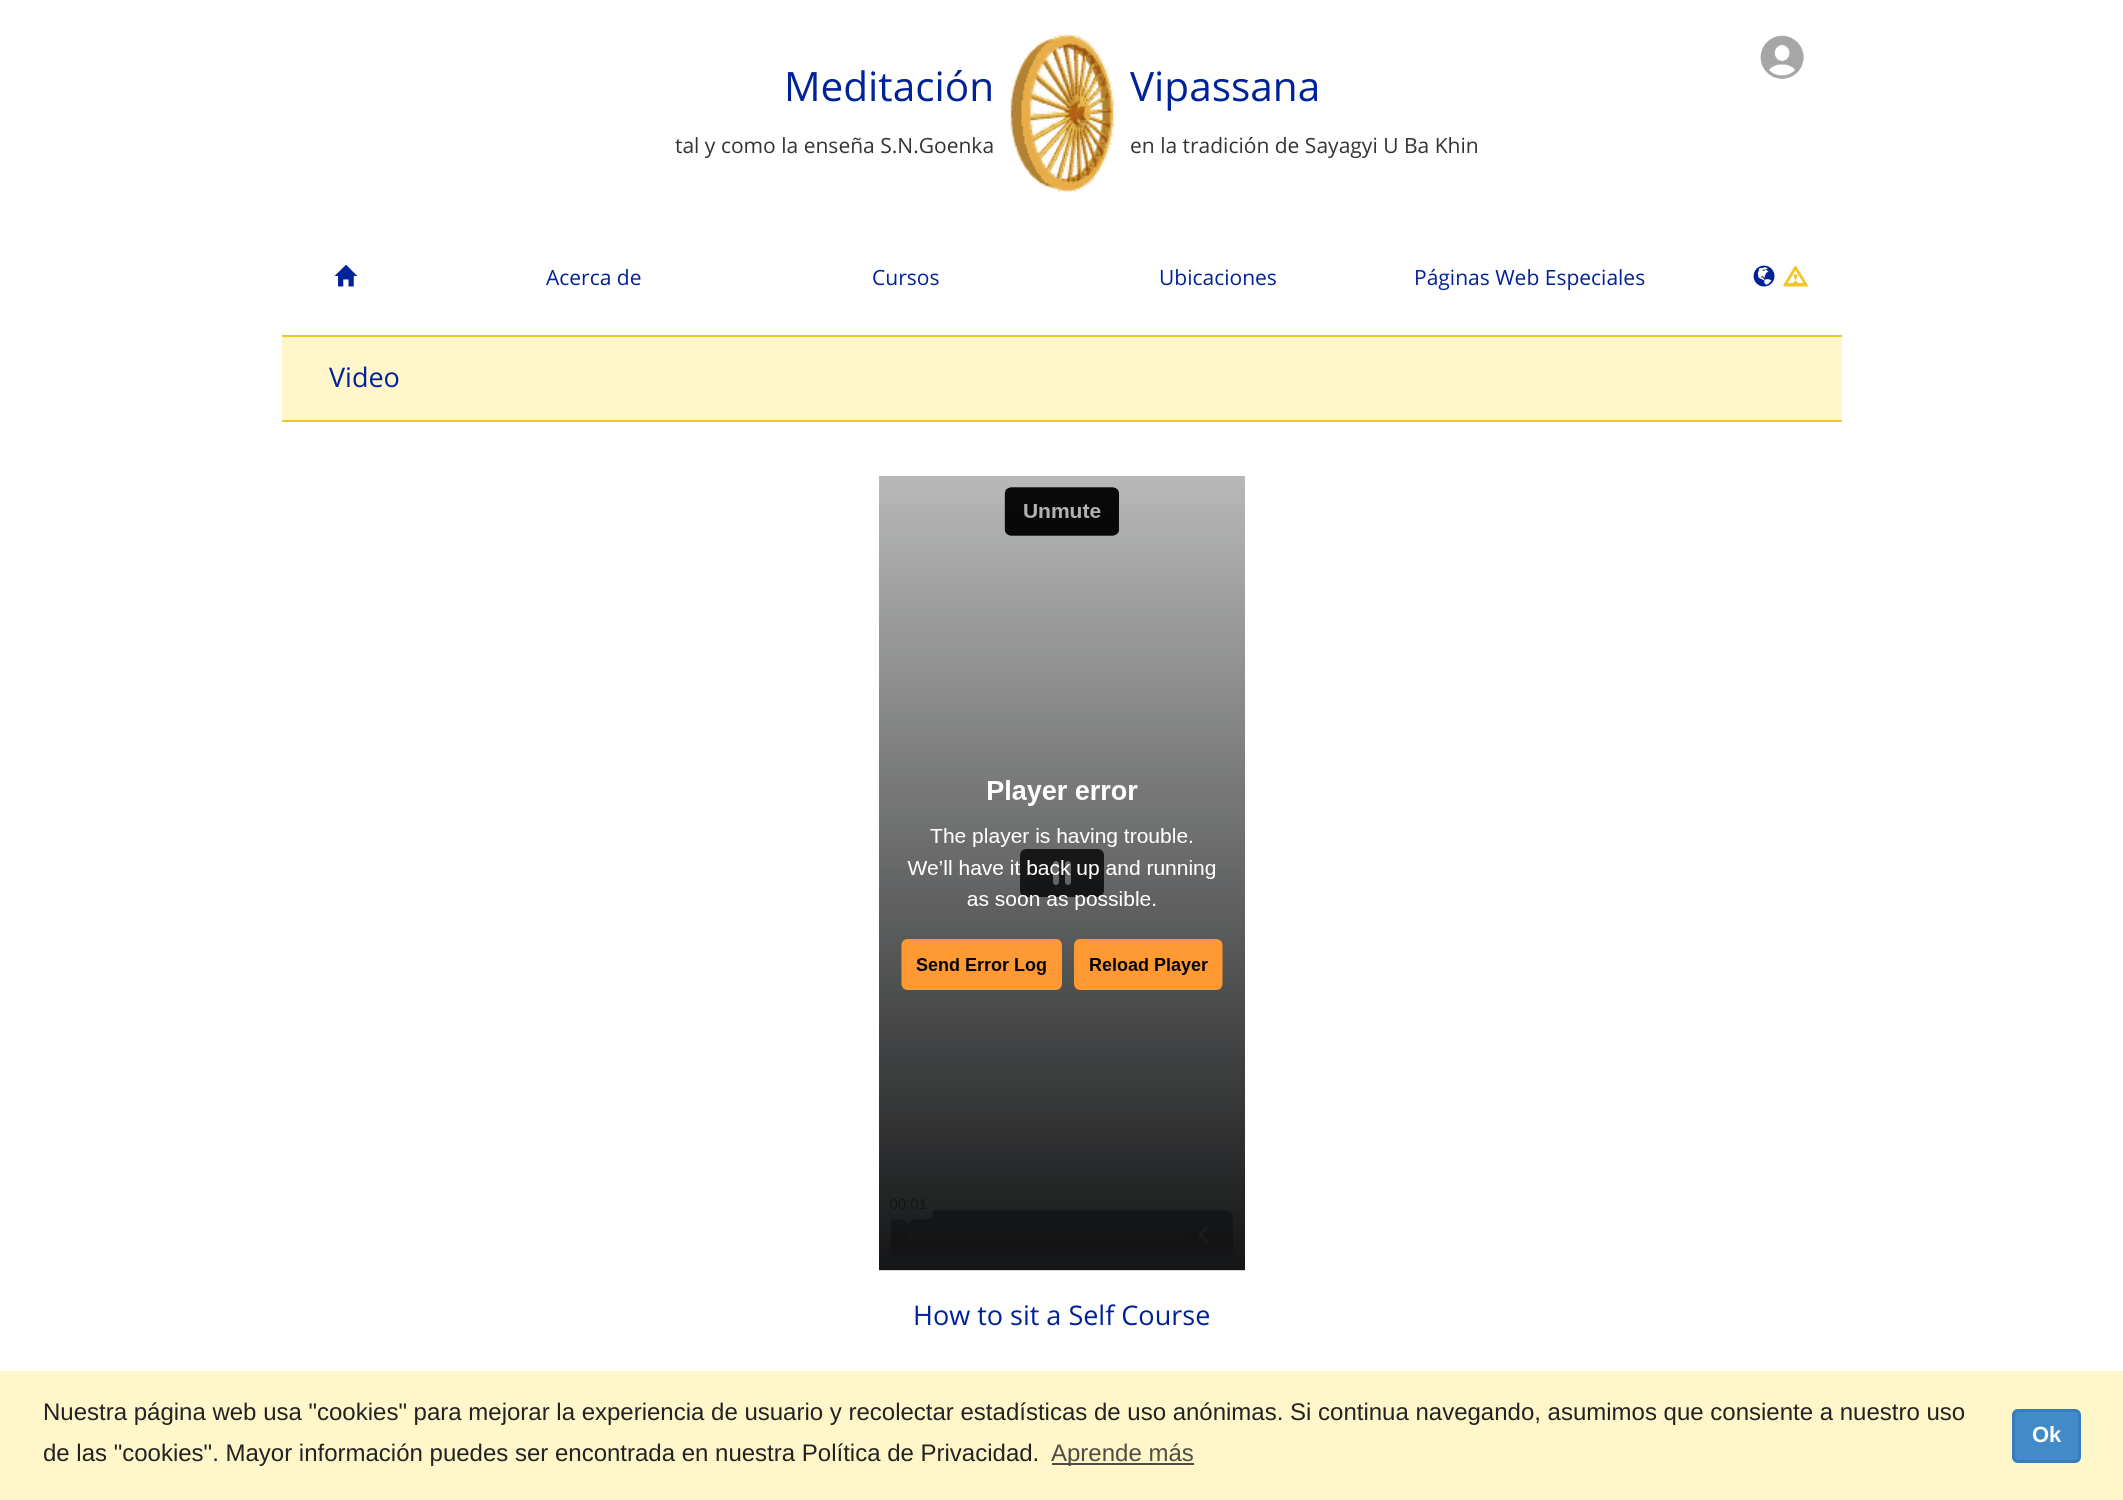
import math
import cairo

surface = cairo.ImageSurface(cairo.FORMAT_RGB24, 2123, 1500)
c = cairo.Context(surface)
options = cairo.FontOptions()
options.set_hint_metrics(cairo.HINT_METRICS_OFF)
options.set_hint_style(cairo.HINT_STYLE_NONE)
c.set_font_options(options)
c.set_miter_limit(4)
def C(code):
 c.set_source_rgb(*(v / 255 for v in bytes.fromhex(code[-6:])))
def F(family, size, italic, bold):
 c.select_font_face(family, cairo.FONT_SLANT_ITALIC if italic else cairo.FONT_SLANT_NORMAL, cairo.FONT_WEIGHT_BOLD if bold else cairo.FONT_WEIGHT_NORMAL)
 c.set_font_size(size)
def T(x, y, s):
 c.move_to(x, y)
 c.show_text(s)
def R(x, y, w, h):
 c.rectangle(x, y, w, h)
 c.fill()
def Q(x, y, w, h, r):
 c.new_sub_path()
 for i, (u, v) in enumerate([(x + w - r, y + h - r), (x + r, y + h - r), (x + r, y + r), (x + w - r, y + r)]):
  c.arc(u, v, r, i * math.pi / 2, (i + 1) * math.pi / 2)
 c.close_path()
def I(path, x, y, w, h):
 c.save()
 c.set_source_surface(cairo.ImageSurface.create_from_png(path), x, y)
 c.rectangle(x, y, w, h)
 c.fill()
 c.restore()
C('ffffff')
c.paint()
I('1.png',1760,35,44,44)
F('Open Sans',40.5,0,0)
C('002299')
T(784,101,'Meditación')
F('Open Sans',21,0,0)
C('333333')
T(675,153,'tal y como la enseña S.N.Goenka')
I('2.png',1010,34,105,158)
F('Open Sans',40.5,0,0)
C('002299')
T(1130,101,'Vipassana')
F('Open Sans',21,0,0)
C('333333')
T(1130,153,'en la tradición de Sayagyi U Ba Khin')
I('3.png',334,264,24,23)
C('002299')
T(546,285,'Acerca de')
T(872,285,'Cursos')
T(1159,285,'Ubicaciones')
T(1414,285,'Páginas Web Especiales')
I('4.png',1753,265,22,22)
I('5.png',1783,265,25,22)
C('fff7c9')
R(282,337,1560,83)
C('efc72a')
R(282,335,1560,2)
R(282,420,1560,2)
F('Open Sans',27,0,0)
C('002299')
T(329,387,'Video')
I('6.png',879,476,366,795)
T(913,1325,'How to sit a Self Course')
C('fff7c9')
R(0,1371,2123,129)
F('Liberation Sans',24,0,0)
C('222222')
T(43,1420,'Nuestra página web usa "cookies" para mejorar la experiencia de usuario y recolectar estadísticas de uso anónimas. Si continua navegando, asumimos que consiente a nuestro uso')
T(43,1461,'de las "cookies". Mayor información puedes ser encontrada en nuestra Política de Privacidad.')
C('4e4d43')
R(1052,1463,142,2)
T(1051,1461,'Aprende más')
C('428bca')
Q(2013.5,1410.5,66,51,4.5)
c.fill_preserve()
C('357ebd')
c.set_line_width(3)
c.stroke()
F('Liberation Sans',22,0,1)
C('ffffff')
T(2032,1442,'Ok')
surface.write_to_png('o.png')
